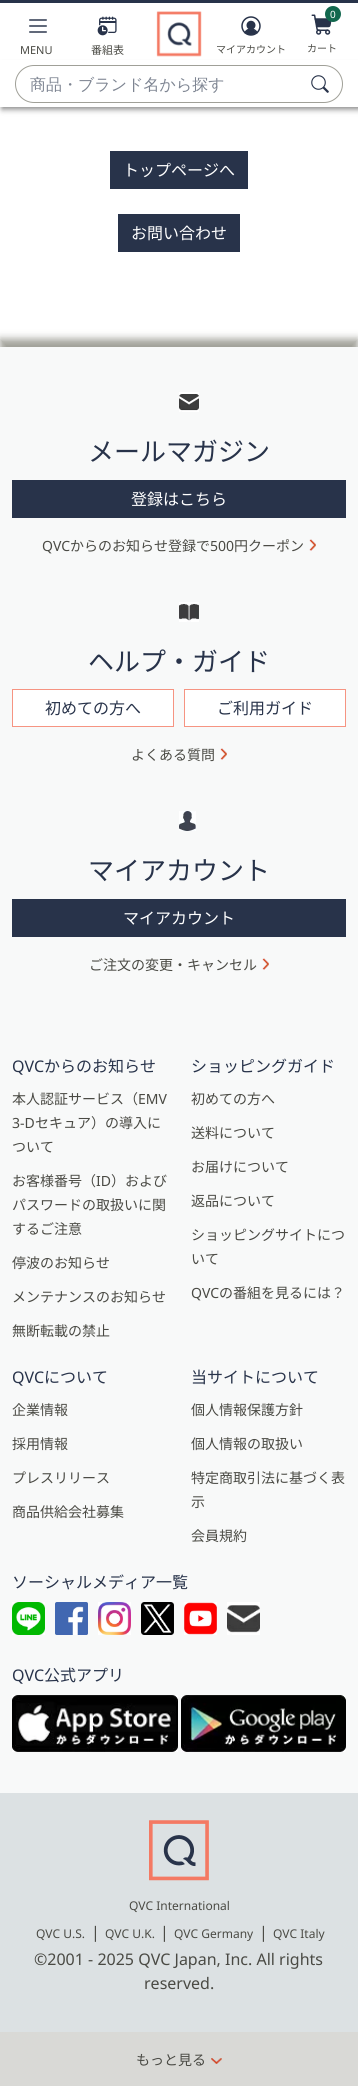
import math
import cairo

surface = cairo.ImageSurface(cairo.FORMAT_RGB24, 358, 2086)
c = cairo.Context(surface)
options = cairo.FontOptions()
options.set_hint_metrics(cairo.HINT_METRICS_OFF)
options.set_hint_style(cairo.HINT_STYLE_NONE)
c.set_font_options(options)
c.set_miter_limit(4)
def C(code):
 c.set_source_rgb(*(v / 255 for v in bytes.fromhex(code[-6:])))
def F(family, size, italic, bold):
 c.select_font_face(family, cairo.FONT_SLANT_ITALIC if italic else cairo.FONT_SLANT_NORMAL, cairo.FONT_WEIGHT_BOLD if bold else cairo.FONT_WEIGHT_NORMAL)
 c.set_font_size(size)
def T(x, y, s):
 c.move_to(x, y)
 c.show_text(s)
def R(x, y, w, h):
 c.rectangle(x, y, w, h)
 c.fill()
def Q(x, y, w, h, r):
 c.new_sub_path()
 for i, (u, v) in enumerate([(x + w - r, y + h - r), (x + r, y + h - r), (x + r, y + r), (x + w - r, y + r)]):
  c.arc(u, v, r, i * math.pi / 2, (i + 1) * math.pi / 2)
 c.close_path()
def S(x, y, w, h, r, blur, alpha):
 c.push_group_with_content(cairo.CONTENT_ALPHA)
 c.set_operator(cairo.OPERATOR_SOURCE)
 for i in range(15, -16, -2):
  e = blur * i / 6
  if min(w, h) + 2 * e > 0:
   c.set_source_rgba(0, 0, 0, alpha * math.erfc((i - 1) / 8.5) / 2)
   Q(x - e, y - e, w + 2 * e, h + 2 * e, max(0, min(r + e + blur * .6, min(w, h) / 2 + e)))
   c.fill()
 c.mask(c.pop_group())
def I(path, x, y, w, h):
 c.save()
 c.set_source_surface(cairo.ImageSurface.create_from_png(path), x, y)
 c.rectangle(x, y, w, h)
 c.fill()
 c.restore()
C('ffffff')
c.paint()
C('000000')
S(2,66,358,43,0,3,.5)
C('ffffff')
R(0,60,358,47)
C('28334a')
R(0,0,358,3)
I('1.png',29,19,18,14)
F('Noto Sans',11,0,0)
C('4a4a44')
T(20,54,'MENU')
I('2.png',97,16,20,20)
F('Noto Sans CJK JP',11,0,0)
T(91,54,'番組表')
I('3.png',156,11,46,46)
I('4.png',241,16,20,20)
F('Noto Sans CJK JP',10,0,0)
T(216,53,'マイアカウント')
I('5.png',311,14,21,21)
C('12684e')
c.arc(333,14,8,0,2 * math.pi)
c.fill()
F('Noto Sans',10,0,0)
C('ffffff')
T(330,18,'0')
F('Noto Sans CJK JP',10,0,0)
C('4a4a44')
T(307,52,'カート')
Q(15.5,65.5,327,37,18.5)
C('a0a098')
c.set_line_width(1)
c.stroke()
F('WenQuanYi Zen Hei Medium',16,0,0)
C('7e8592')
T(30,90,'商品・ブランド名から探す')
I('6.png',311,75,18,18)
C('28334a')
R(110,151,138,38)
F('Noto Sans CJK JP',16,0,0)
C('ffffff')
T(123,176,'トップページへ')
C('28334a')
R(118,214,122,38)
C('ffffff')
T(131,239,'お問い合わせ')
C('a0a098')
S(0,339,358,1739,0,4,1)
C('f8f9f9')
R(0,347,358,1446)
I('7.png',179,392,20,20)
F('Noto Sans CJK JP',26,0,0)
C('28334a')
T(88,461,'メールマガジン')
R(12,480,334,38)
F('Noto Sans CJK JP',16,0,0)
C('ffffff')
T(131,505,'登録はこちら')
F('Noto Sans',14,0,0)
C('4a4a44')
T(42,551,'QVC')
F('Noto Sans CJK JP',14,0,0)
T(70,551,'からのお知らせ登録で')
F('Noto Sans',14,0,0)
T(210,551,'500')
F('Noto Sans CJK JP',14,0,0)
T(234,551,'円クーポン')
I('8.png',309,539,7,12)
I('9.png',179,602,20,20)
F('Noto Sans CJK JP',26,0,0)
C('28334a')
T(88,671,'ヘルプ・ガイド')
C('ffffff')
c.rectangle(12.5,689.5,161,37)
c.fill_preserve()
C('f69482')
c.stroke()
F('Noto Sans CJK JP',16,0,0)
C('28334a')
T(45,714,'初めての方へ')
C('ffffff')
c.rectangle(184.5,689.5,161,37)
c.fill_preserve()
C('f69482')
c.stroke()
C('28334a')
T(217,714,'ご利用ガイド')
F('Noto Sans CJK JP',14,0,0)
C('4a4a44')
T(131,760,'よくある質問')
I('8.png',220,748,7,12)
I('10.png',179,811,17,20)
F('Noto Sans CJK JP',26,0,0)
C('28334a')
T(88,880,'マイアカウント')
R(12,899,334,38)
F('Noto Sans CJK JP',16,0,0)
C('ffffff')
T(123,924,'マイアカウント')
F('Noto Sans CJK JP',14,0,0)
C('4a4a44')
T(89,970,'ご注文の変更・キャンセル')
I('8.png',262,958,7,12)
F('Noto Sans',16,0,0)
C('28334a')
T(12,1072,'QVC')
F('Noto Sans CJK JP',16,0,0)
T(44,1072,'からのお知らせ')
F('Noto Sans CJK JP',14,0,0)
C('4a4a44')
T(12,1104,'本人認証サービス（')
F('Noto Sans',14,0,0)
T(138,1104,'EMV')
T(12,1128,'3-D')
F('Noto Sans CJK JP',14,0,0)
T(35,1128,'セキュア）の導入に')
T(12,1152,'ついて')
T(12,1186,'お客様番号（')
F('Noto Sans',14,0,0)
T(96,1186,'ID')
F('Noto Sans CJK JP',14,0,0)
T(111,1186,'）および')
T(12,1210,'パスワードの取扱いに関')
T(12,1234,'するご注意')
T(12,1268,'停波のお知らせ')
T(12,1302,'メンテナンスのお知らせ')
T(12,1336,'無断転載の禁止')
F('Noto Sans CJK JP',16,0,0)
C('28334a')
T(191,1072,'ショッピングガイド')
F('Noto Sans CJK JP',14,0,0)
C('4a4a44')
T(191,1104,'初めての方へ')
T(191,1138,'送料について')
T(191,1172,'お届けについて')
T(191,1206,'返品について')
T(191,1240,'ショッピングサイトにつ')
T(191,1264,'いて')
F('Noto Sans',14,0,0)
T(191,1298,'QVC')
F('Noto Sans CJK JP',14,0,0)
T(219,1298,'の番組を見るには？')
F('Noto Sans',16,0,0)
C('28334a')
T(12,1383,'QVC')
F('Noto Sans CJK JP',16,0,0)
T(44,1383,'について')
F('Noto Sans CJK JP',14,0,0)
C('4a4a44')
T(12,1415,'企業情報')
T(12,1449,'採用情報')
T(12,1483,'プレスリリース')
T(12,1517,'商品供給会社募集')
F('Noto Sans CJK JP',16,0,0)
C('28334a')
T(191,1383,'当サイトについて')
F('Noto Sans CJK JP',14,0,0)
C('4a4a44')
T(191,1415,'個人情報保護方針')
T(191,1449,'個人情報の取扱い')
T(191,1483,'特定商取引法に基づく表')
T(191,1507,'示')
T(191,1541,'会員規約')
F('Noto Sans CJK JP',16,0,0)
C('28334a')
T(12,1588,'ソーシャルメディア一覧')
I('11.png',12,1602,33,33)
I('12.png',55,1602,33,33)
I('13.png',98,1602,33,33)
I('14.png',141,1602,33,33)
I('15.png',184,1602,33,33)
I('16.png',227,1602,33,33)
F('Noto Sans',16,0,0)
T(12,1681,'QVC')
F('Noto Sans CJK JP',16,0,0)
T(44,1681,'公式アプリ')
I('17.png',12,1695,166,57)
I('18.png',181,1695,165,57)
C('dce1e3')
R(0,1793,358,239)
I('19.png',149,1820,60,61)
F('Noto Sans',12,0,0)
C('4a4a44')
T(129,1910,'QVC International')
T(36,1938,'QVC U.S.')
F('Noto Sans',16,0,0)
T(91,1938,'|')
F('Noto Sans',12,0,0)
T(105,1938,'QVC U.K.')
F('Noto Sans',16,0,0)
T(160,1938,'|')
F('Noto Sans',12,0,0)
T(174,1938,'QVC Germany')
F('Noto Sans',16,0,0)
T(259,1938,'|')
F('Noto Sans',12,0,0)
T(273,1938,'QVC Italy')
F('Noto Sans',16,0,0)
T(34,1965,'©2001 - 2025 QVC Japan, Inc. All rights')
T(144,1989,'reserved.')
C('d9d9d6')
R(0,2032,358,54)
F('Noto Sans CJK JP',14,0,0)
C('4a4a44')
T(136,2065,'もっと見る')
I('20.png',211,2058,11,6)
surface.write_to_png('o.png')
